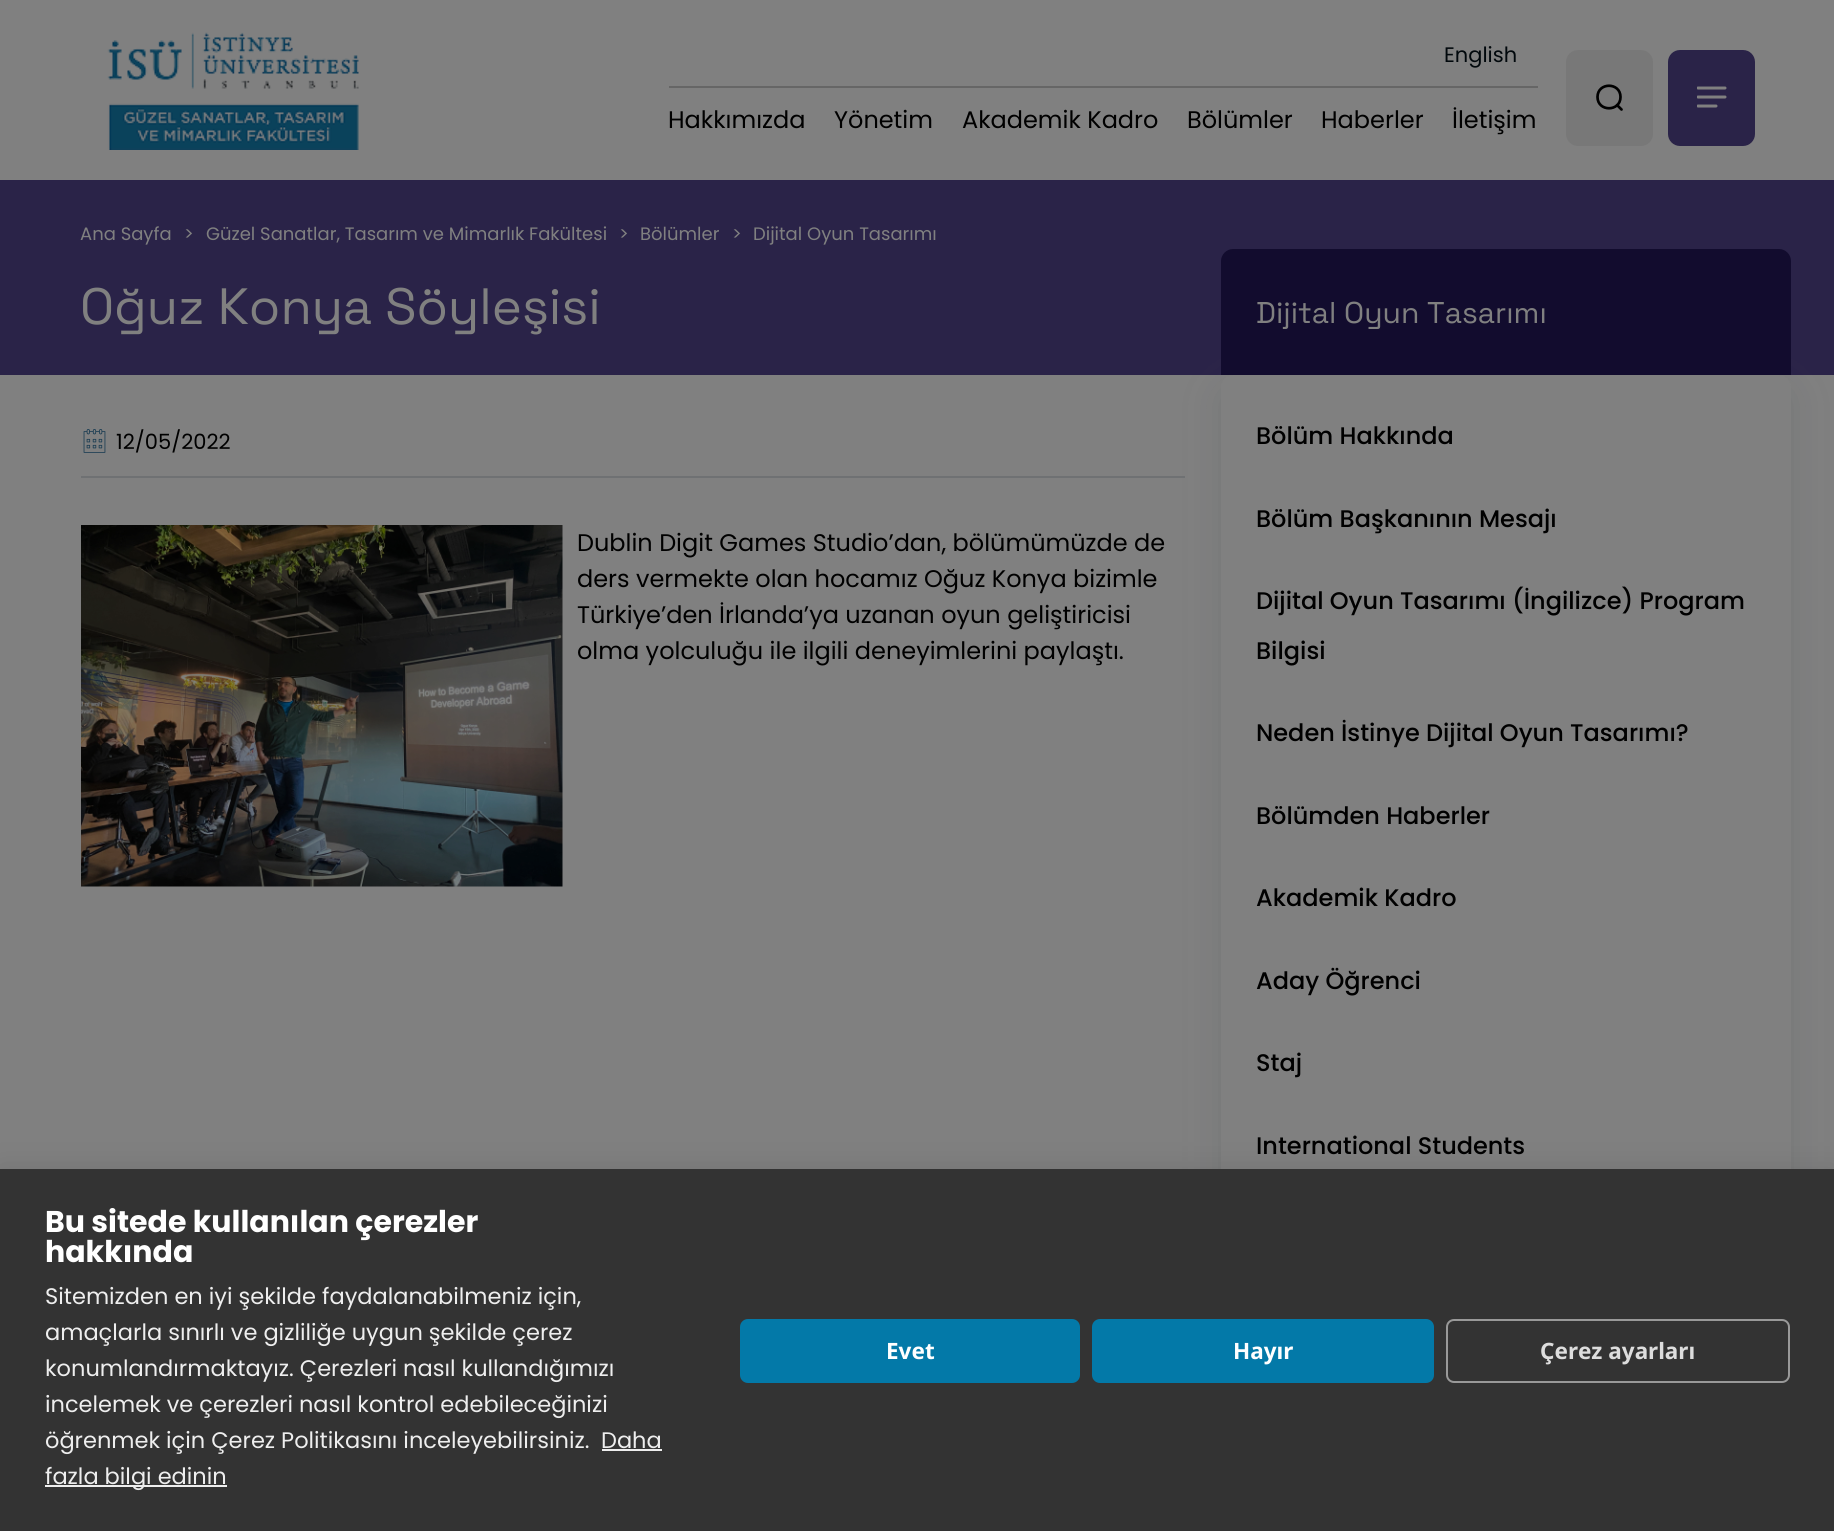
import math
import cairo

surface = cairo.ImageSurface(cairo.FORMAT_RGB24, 1834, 1531)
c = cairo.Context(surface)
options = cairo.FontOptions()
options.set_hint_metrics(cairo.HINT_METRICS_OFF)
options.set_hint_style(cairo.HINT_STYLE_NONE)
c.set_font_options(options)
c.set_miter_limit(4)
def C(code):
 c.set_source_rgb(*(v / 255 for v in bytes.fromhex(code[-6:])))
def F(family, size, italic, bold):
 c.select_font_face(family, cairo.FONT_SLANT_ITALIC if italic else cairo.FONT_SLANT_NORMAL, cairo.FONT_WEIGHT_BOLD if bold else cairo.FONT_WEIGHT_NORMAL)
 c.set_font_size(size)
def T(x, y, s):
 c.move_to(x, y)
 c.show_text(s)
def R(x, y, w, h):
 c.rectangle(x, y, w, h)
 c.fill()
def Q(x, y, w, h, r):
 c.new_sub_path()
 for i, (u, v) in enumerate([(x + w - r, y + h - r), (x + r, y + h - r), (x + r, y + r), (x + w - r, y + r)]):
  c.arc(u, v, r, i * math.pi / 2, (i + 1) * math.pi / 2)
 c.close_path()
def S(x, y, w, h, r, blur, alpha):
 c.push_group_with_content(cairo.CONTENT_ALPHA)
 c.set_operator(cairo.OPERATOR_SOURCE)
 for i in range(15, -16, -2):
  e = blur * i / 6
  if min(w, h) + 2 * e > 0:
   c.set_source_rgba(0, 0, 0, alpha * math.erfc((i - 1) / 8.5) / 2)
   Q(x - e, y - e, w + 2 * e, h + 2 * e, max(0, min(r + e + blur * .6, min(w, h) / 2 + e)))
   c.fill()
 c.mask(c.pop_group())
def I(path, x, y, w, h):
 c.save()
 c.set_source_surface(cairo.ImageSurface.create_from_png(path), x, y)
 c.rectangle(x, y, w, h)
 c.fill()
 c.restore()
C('808080')
c.paint()
I('1.png',107,32,252,118)
F('Poppins',21,0,0)
C('01080c')
T(1444,62,'English')
C('666666')
R(669,86,869,2)
F('Poppins',24,0,0)
C('000000')
T(668,128,'Hakkımızda')
T(834,128,'Yönetim')
T(962,128,'Akademik Kadro')
T(1187,128,'Bölümler')
T(1321,128,'Haberler')
T(1452,128,'İletişim')
C('787878')
Q(1566,50,87,96,12)
c.fill()
c.new_path()
c.move_to(1621.5,109.5)
c.line_to(1617,105)
c.move_to(1620.5,97)
c.curve_to(1620.5,112,1597.5,112,1597.5,97)
c.curve_to(1597.5,82,1620.5,82,1620.5,97)
c.close_path()
C('000000')
c.set_line_width(2.7)
c.set_line_cap(cairo.LINE_CAP_ROUND)
c.set_line_join(cairo.LINE_JOIN_ROUND)
c.stroke()
C('2a2348')
Q(1668,50,87,96,12)
c.fill()
c.save()
c.rectangle(1697,86,30,22)
c.clip()
c.new_path()
c.move_to(1698,97)
c.line_to(1725,97)
c.move_to(1698,88)
c.line_to(1725,88)
c.move_to(1698,106)
c.line_to(1716,106)
C('808080')
c.set_line_width(3)
c.stroke()
c.restore()
R(0,180,1834,195)
F('Poppins',18,0,0)
C('808080')
T(80,240,'Ana Sayfa')
T(184,240,'>')
T(206,240,'Güzel Sanatlar, Tasarım ve Mimarlık Fakültesi')
T(619,240,'>')
T(640,240,'Bölümler')
T(732,240,'>')
T(753,240,'Dijital Oyun Tasarımı')
F('Space Grotesk Light',51,0,0)
T(80,324,'Oğuz Konya Söyleşisi')
C('6f7173')
R(81,476,1104,2)
I('2.png',83,429,23,24)
F('Poppins',21,0,0)
C('000000')
T(116,449,'12/05/2022')
I('3.png',81,525,482,362)
F('Poppins',24,0,0)
T(577,551,'Dublin Digit Games Studio’dan, bölümümüzde de')
T(577,587,'ders vermekte olan hocamız Oğuz Konya bizimle')
T(577,623,'Türkiye’den İrlanda’ya uzanan oyun geliştiricisi')
T(577,659,'olma yolculuğu ile ilgili deneyimlerini paylaştı.')
C('4b4f53')
S(1221,387,570,1097,12,18,.2)
C('120c2e')
c.new_path()
c.move_to(1233,249)
c.line_to(1779,249)
c.curve_to(1785.5,249,1791,254.5,1791,261)
c.line_to(1791,375)
c.line_to(1221,375)
c.line_to(1221,261)
c.curve_to(1221,254.5,1226.5,249,1233,249)
c.close_path()
c.fill()
F('Space Grotesk Light',30,0,0)
C('808080')
T(1256,323,'Dijital Oyun Tasarımı')
Q(1221,375,570,1097,12)
c.fill()
F('Poppins Medium',24,0,0)
C('000000')
T(1256,444,'Bölüm Hakkında')
T(1256,527,'Bölüm Başkanının Mesajı')
T(1256,609,'Dijital Oyun Tasarımı (İngilizce) Program')
T(1256,659,'Bilgisi')
T(1256,741,'Neden İstinye Dijital Oyun Tasarımı?')
T(1256,824,'Bölümden Haberler')
T(1256,906,'Akademik Kadro')
T(1256,989,'Aday Öğrenci')
T(1256,1071,'Staj')
T(1256,1154,'International Students')
C('000000')
S(0,1169,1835,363,0,15,.1)
C('333333')
R(0,1169,1834,362)
F('Poppins',30,0,1)
C('ffffff')
T(45,1232,'Bu sitede kullanılan çerezler')
T(45,1262,'hakkında')
F('Poppins',22.5,0,0)
C('eeeeee')
T(45,1304,'Sitemizden en iyi şekilde faydalanabilmeniz için,')
T(45,1340,'amaçlarla sınırlı ve gizliliğe uygun şekilde çerez')
T(45,1376,'konumlandırmaktayız. Çerezleri nasıl kullandığımızı')
T(45,1412,'incelemek ve çerezleri nasıl kontrol edebileceğinizi')
T(45,1448,'öğrenmek için Çerez Politikasını inceleyebilirsiniz.')
T(601,1448,'Daha')
R(602,1449,60,2)
R(45,1485,182,2)
T(45,1484,'fazla bilgi edinin')
C('0379a8')
Q(740,1319,340,64,8)
c.fill()
F('Noto Sans',22.5,0,1)
C('ffffff')
T(886,1359,'Evet')
C('0379a8')
Q(1092,1319,342,64,8)
c.fill()
C('ffffff')
T(1233,1359,'Hayır')
Q(1447,1320,342,62,7)
C('999999')
c.set_line_width(2)
c.set_line_cap(cairo.LINE_CAP_BUTT)
c.set_line_join(cairo.LINE_JOIN_MITER)
c.stroke()
C('dddddd')
T(1540,1359,'Çerez ayarları')
surface.write_to_png('o.png')
